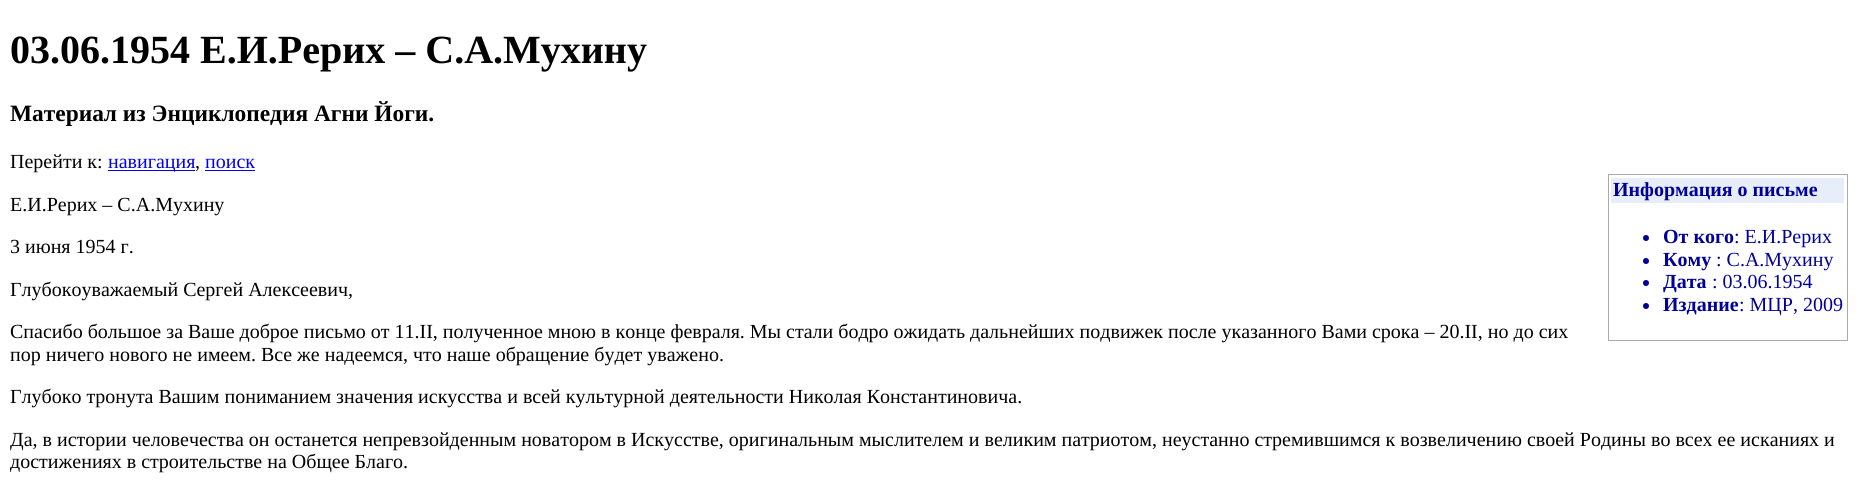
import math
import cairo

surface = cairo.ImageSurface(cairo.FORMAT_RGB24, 1857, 484)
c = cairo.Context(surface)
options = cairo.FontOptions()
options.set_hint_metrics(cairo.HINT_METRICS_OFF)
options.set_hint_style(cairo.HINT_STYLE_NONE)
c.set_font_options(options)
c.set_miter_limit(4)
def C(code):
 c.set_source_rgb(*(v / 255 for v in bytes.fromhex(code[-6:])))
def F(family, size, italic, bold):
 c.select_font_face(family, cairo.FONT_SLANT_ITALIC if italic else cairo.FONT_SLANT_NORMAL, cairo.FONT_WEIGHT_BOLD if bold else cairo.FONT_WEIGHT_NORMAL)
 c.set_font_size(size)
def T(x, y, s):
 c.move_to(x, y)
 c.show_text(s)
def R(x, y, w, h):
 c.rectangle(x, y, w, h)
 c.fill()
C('ffffff')
c.paint()
F('Liberation Serif',40,0,1)
C('000000')
T(10,63,'03.06.1954 Е.И.Рерих – С.А.Мухину')
F('Liberation Serif',23.4,0,1)
T(10,121,'Материал из Энциклопедия Агни Йоги.')
F('Liberation Serif',20,0,0)
T(10,168,'Перейти к:')
C('0000ee')
R(108,170,87,1)
T(108,168,'навигация')
C('000000')
T(195,168,',')
C('0000ee')
T(205,168,'поиск')
R(205,170,50,1)
C('000000')
T(10,211,'Е.И.Рерих – С.А.Мухину')
c.rectangle(1608.5,174.5,239,166)
C('aaaaaa')
c.set_line_width(1)
c.stroke()
C('e7edf9')
R(1611,178,233,25)
F('Liberation Serif',20,0,1)
C('000099')
T(1613,196,'Информация о письме')
c.new_path()
c.arc(1646,238,3,0,2 * math.pi)
c.fill()
T(1663,243,'От кого')
F('Liberation Serif',20,0,0)
T(1734,243,': Е.И.Рерих')
c.new_path()
c.arc(1646,261,3,0,2 * math.pi)
c.fill()
F('Liberation Serif',20,0,1)
T(1663,266,'Кому')
F('Liberation Serif',20,0,0)
T(1716,266,': С.А.Мухину')
c.new_path()
c.arc(1646,283,3,0,2 * math.pi)
c.fill()
F('Liberation Serif',20,0,1)
T(1663,288,'Дата')
F('Liberation Serif',20,0,0)
T(1712,288,': 03.06.1954')
c.new_path()
c.arc(1646,306,3,0,2 * math.pi)
c.fill()
F('Liberation Serif',20,0,1)
T(1663,311,'Издание')
F('Liberation Serif',20,0,0)
T(1739,311,': МЦР, 2009')
C('000000')
T(10,253,'3 июня 1954 г.')
T(10,296,'Глубокоуважаемый Сергей Алексеевич,')
T(10,338,'Спасибо большое за Ваше доброе письмо от 11.II, полученное мною в конце февраля. Мы стали бодро ожидать дальнейших подвижек после указанного Вами срока – 20.II, но до сих')
T(10,361,'пор ничего нового не имеем. Все же надеемся, что наше обращение будет уважено.')
T(10,403,'Глубоко тронута Вашим пониманием значения искусства и всей культурной деятельности Николая Константиновича.')
T(10,446,'Да, в истории человечества он останется непревзойденным новатором в Искусстве, оригинальным мыслителем и великим патриотом, неустанно стремившимся к возвеличению своей Родины во всех ее исканиях и')
T(10,468,'достижениях в строительстве на Общее Благо.')
surface.write_to_png('o.png')
